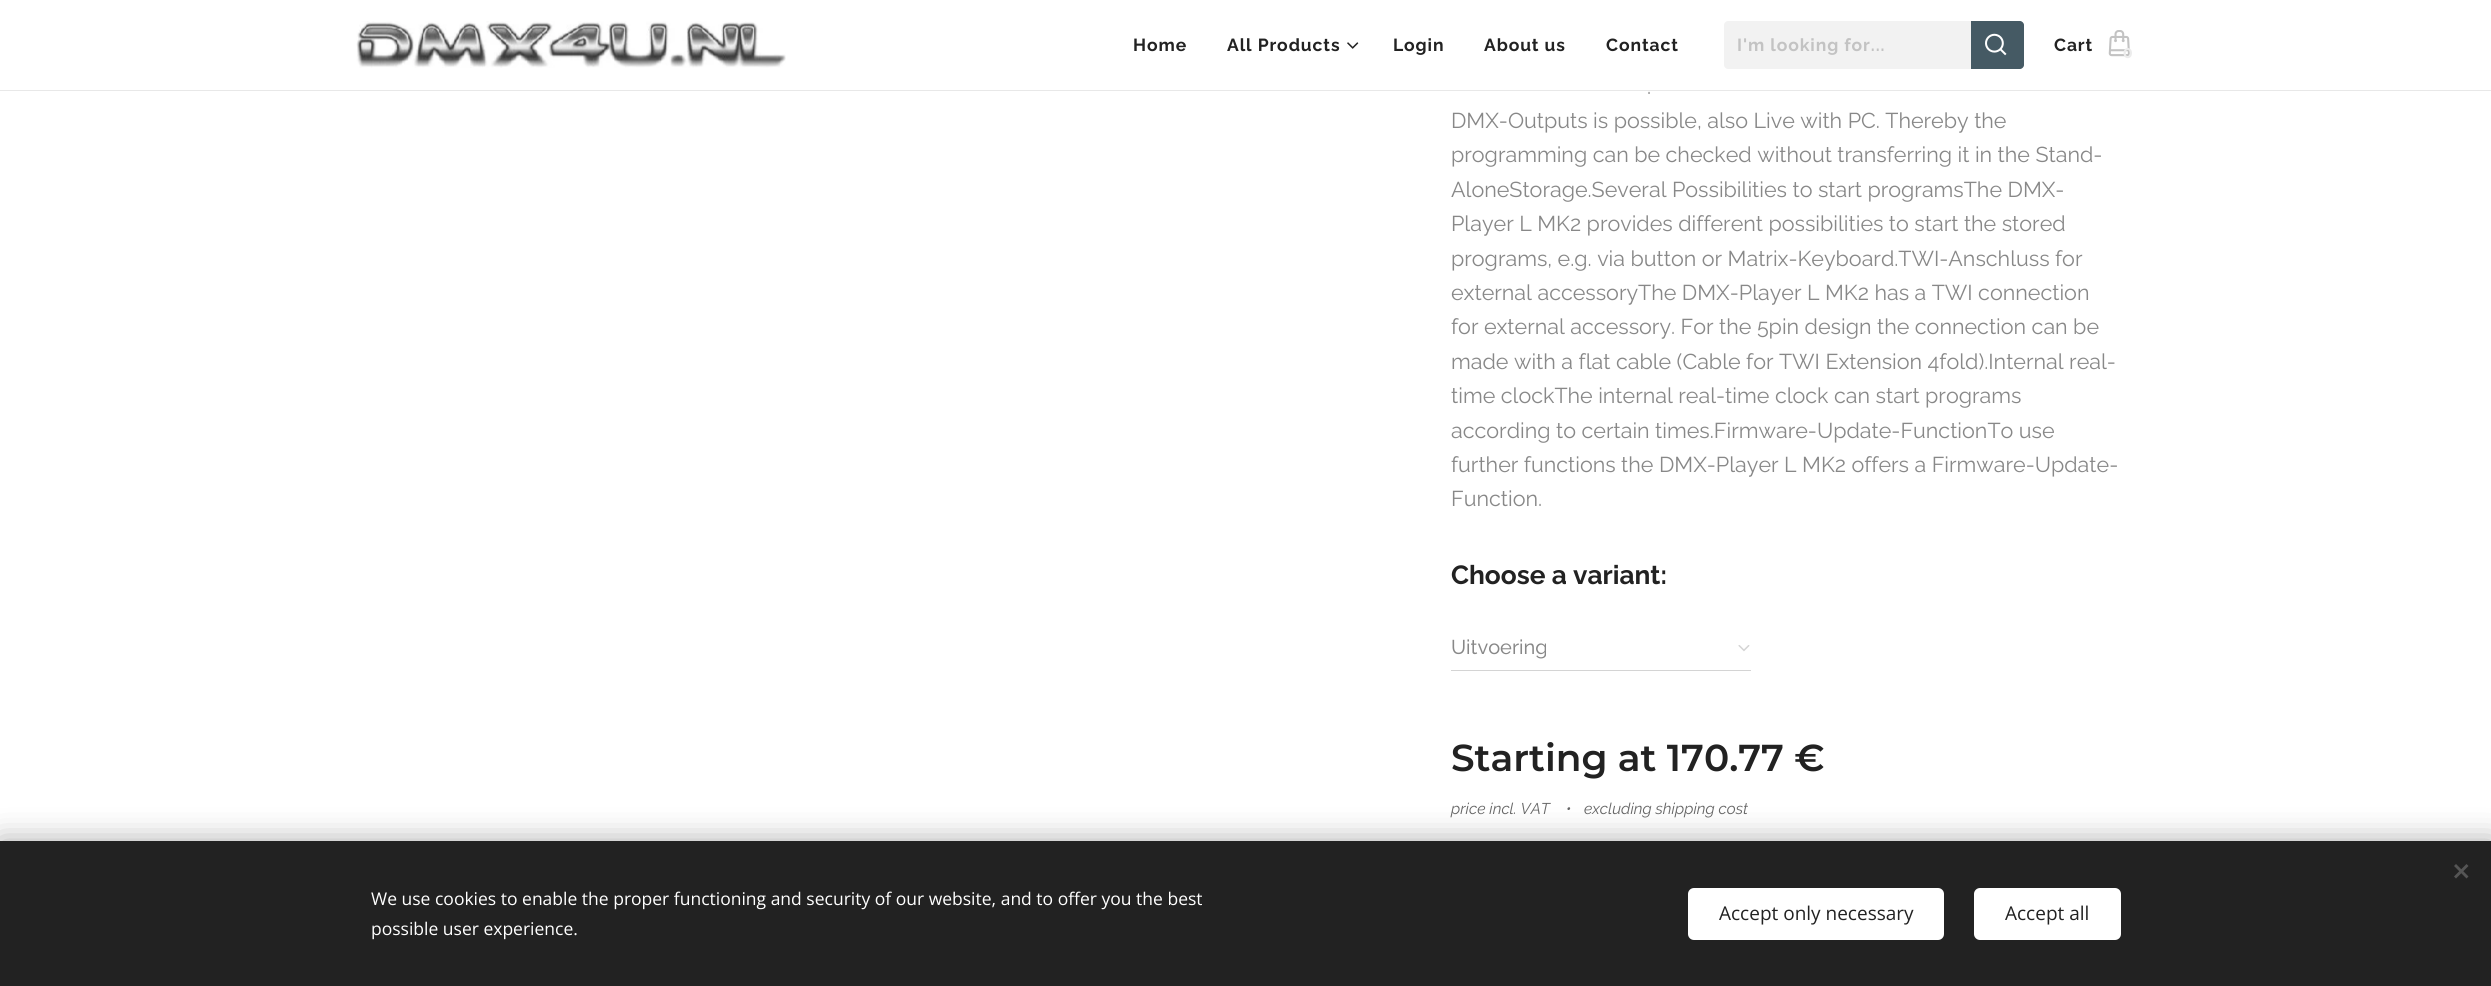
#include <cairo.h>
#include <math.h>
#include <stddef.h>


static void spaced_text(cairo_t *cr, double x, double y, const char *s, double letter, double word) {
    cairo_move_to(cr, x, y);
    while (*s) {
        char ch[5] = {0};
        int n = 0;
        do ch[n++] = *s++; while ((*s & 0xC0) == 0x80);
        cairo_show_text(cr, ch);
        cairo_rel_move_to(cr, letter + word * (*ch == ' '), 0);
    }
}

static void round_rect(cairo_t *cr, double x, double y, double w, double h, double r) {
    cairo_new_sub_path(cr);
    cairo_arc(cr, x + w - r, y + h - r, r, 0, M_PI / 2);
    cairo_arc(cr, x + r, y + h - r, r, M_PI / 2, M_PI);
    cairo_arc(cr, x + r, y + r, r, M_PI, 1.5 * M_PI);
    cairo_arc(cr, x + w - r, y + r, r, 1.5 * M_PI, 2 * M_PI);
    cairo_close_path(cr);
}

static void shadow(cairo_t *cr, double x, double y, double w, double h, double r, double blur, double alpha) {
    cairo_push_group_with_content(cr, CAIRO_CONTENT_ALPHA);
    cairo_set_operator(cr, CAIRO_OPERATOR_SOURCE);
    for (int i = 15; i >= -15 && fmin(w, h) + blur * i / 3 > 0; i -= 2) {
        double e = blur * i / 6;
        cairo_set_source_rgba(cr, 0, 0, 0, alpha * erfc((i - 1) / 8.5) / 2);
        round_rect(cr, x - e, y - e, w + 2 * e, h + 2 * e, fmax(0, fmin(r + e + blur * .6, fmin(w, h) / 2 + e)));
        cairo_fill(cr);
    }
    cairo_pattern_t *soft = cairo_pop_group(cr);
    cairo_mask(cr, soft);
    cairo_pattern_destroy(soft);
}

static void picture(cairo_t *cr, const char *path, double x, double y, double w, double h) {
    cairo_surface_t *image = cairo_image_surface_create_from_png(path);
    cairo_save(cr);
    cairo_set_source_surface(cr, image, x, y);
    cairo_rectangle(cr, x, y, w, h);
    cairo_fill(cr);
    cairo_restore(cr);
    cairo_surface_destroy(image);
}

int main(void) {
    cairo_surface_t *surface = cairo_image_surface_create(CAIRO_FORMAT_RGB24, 2491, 986);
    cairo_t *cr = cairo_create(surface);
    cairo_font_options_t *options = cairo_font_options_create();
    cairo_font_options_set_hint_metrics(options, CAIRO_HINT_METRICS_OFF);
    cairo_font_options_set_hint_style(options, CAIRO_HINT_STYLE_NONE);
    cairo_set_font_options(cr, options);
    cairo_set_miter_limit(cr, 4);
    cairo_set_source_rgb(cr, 1, 1, 1);
    cairo_paint(cr);
    cairo_set_source_rgb(cr, 0.91, 0.91, 0.91);
    cairo_rectangle(cr, 0, 90, 2491, 1);
    cairo_fill(cr);
    picture(cr, "img1.png", 356, 21, 430, 47);
    cairo_select_font_face(cr, "Raleway", CAIRO_FONT_SLANT_NORMAL, CAIRO_FONT_WEIGHT_BOLD);
    cairo_set_font_size(cr, 17.5);
    cairo_set_source_rgb(cr, 0.133, 0.133, 0.133);
    spaced_text(cr, 1133, 51, "Home", 0.9, 0);
    spaced_text(cr, 1227, 51, "All Products", 0.9, 0);
    picture(cr, "img2.png", 1347, 42, 12, 7);
    spaced_text(cr, 1393, 51, "Login", 0.9, 0);
    spaced_text(cr, 1484, 51, "About us", 0.9, 0);
    spaced_text(cr, 1606, 51, "Contact", 0.9, 0);
    cairo_set_source_rgb(cr, 0.949, 0.949, 0.949);
    cairo_new_path(cr);
    cairo_move_to(cr, 1728, 21);
    cairo_line_to(cr, 1971, 21);
    cairo_line_to(cr, 1971, 69);
    cairo_line_to(cr, 1728, 69);
    cairo_curve_to(cr, 1726, 69, 1724, 67, 1724, 65);
    cairo_line_to(cr, 1724, 25);
    cairo_curve_to(cr, 1724, 23, 1726, 21, 1728, 21);
    cairo_close_path(cr);
    cairo_fill(cr);
    cairo_set_source_rgb(cr, 0.765, 0.765, 0.765);
    spaced_text(cr, 1737, 51, "I'm looking for...", 0.9, 0);
    cairo_set_source_rgb(cr, 0.271, 0.353, 0.392);
    cairo_new_path(cr);
    cairo_move_to(cr, 1971, 21);
    cairo_line_to(cr, 2020, 21);
    cairo_curve_to(cr, 2022, 21, 2024, 23, 2024, 25);
    cairo_line_to(cr, 2024, 65);
    cairo_curve_to(cr, 2024, 67, 2022, 69, 2020, 69);
    cairo_line_to(cr, 1971, 69);
    cairo_close_path(cr);
    cairo_fill(cr);
    picture(cr, "img3.png", 1985, 33, 22, 23);
    cairo_set_source_rgb(cr, 0.133, 0.133, 0.133);
    spaced_text(cr, 2054, 51, "Cart", 0.9, 0);
    picture(cr, "img4.png", 2108, 30, 22, 27);
    cairo_select_font_face(cr, "Montserrat", CAIRO_FONT_SLANT_NORMAL, CAIRO_FONT_WEIGHT_BOLD);
    cairo_set_font_size(cr, 14);
    cairo_set_source_rgb(cr, 0.922, 0.922, 0.922);
    cairo_move_to(cr, 2123, 58);
    cairo_show_text(cr, "0");
    cairo_select_font_face(cr, "Raleway", CAIRO_FONT_SLANT_NORMAL, CAIRO_FONT_WEIGHT_NORMAL);
    cairo_set_font_size(cr, 21.5);
    cairo_set_source_rgb(cr, 0.533, 0.533, 0.533);
    cairo_move_to(cr, 1647, 94);
    cairo_show_text(cr, ".");
    cairo_move_to(cr, 1451, 128);
    cairo_show_text(cr, "DMX-Outputs is possible, also Live with PC. Thereby the");
    cairo_move_to(cr, 1451, 162);
    cairo_show_text(cr, "programming can be checked without transferring it in the Stand-");
    cairo_move_to(cr, 1451, 197);
    cairo_show_text(cr, "AloneStorage.Several Possibilities to start programsThe DMX-");
    cairo_move_to(cr, 1451, 231);
    cairo_show_text(cr, "Player L MK2 provides different possibilities to start the stored");
    cairo_move_to(cr, 1451, 266);
    cairo_show_text(cr, "programs, e.g. via button or Matrix-Keyboard.TWI-Anschluss for");
    cairo_move_to(cr, 1451, 300);
    cairo_show_text(cr, "external accessoryThe DMX-Player L MK2 has a TWI connection");
    cairo_move_to(cr, 1451, 334);
    cairo_show_text(cr, "for external accessory. For the 5pin design the connection can be");
    cairo_move_to(cr, 1451, 369);
    cairo_show_text(cr, "made with a flat cable (Cable for TWI Extension 4fold).Internal real-");
    cairo_move_to(cr, 1451, 403);
    cairo_show_text(cr, "time clockThe internal real-time clock can start programs");
    cairo_move_to(cr, 1451, 438);
    cairo_show_text(cr, "according to certain times.Firmware-Update-FunctionTo use");
    cairo_move_to(cr, 1451, 472);
    cairo_show_text(cr, "further functions the DMX-Player L MK2 offers a Firmware-Update-");
    cairo_move_to(cr, 1451, 506);
    cairo_show_text(cr, "Function.");
    cairo_select_font_face(cr, "Raleway", CAIRO_FONT_SLANT_NORMAL, CAIRO_FONT_WEIGHT_BOLD);
    cairo_set_font_size(cr, 26.25);
    cairo_set_source_rgb(cr, 0.133, 0.133, 0.133);
    cairo_move_to(cr, 1451, 584);
    cairo_show_text(cr, "Choose a variant:");
    cairo_select_font_face(cr, "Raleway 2", CAIRO_FONT_SLANT_NORMAL, CAIRO_FONT_WEIGHT_NORMAL);
    cairo_set_font_size(cr, 20);
    cairo_set_source_rgb(cr, 0.533, 0.533, 0.533);
    cairo_move_to(cr, 1451, 654);
    cairo_show_text(cr, "Uitvoering");
    picture(cr, "img5.png", 1738, 645, 12, 7);
    cairo_set_source_rgb(cr, 0.831, 0.831, 0.831);
    cairo_rectangle(cr, 1451, 670, 300, 1);
    cairo_fill(cr);
    cairo_select_font_face(cr, "Montserrat SemiBold", CAIRO_FONT_SLANT_NORMAL, CAIRO_FONT_WEIGHT_NORMAL);
    cairo_set_font_size(cr, 37.5);
    cairo_set_source_rgb(cr, 0.133, 0.133, 0.133);
    cairo_move_to(cr, 1451, 771);
    cairo_show_text(cr, "Starting at 170.77 €");
    cairo_select_font_face(cr, "Raleway", CAIRO_FONT_SLANT_ITALIC, CAIRO_FONT_WEIGHT_NORMAL);
    cairo_set_font_size(cr, 15.6);
    cairo_set_source_rgb(cr, 0.4, 0.4, 0.4);
    cairo_move_to(cr, 1451, 814);
    cairo_show_text(cr, "price incl. VAT");
    cairo_move_to(cr, 1566, 814);
    cairo_show_text(cr, "•");
    cairo_move_to(cr, 1584, 814);
    cairo_show_text(cr, "excluding shipping cost");
    cairo_set_source_rgb(cr, 0, 0, 0);
    shadow(cr, 0, 841, 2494, 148, 0, 15.5, 0.33);
    cairo_set_source_rgb(cr, 0.133, 0.133, 0.133);
    cairo_rectangle(cr, 0, 841, 2491, 145);
    cairo_fill(cr);
    cairo_set_source_rgb(cr, 0.333, 0.333, 0.333);
    cairo_new_path(cr);
    cairo_move_to(cr, 2454, 876.5);
    cairo_line_to(cr, 2466.5, 864);
    cairo_line_to(cr, 2468.5, 866);
    cairo_line_to(cr, 2456, 878.5);
    cairo_close_path(cr);
    cairo_fill(cr);
    cairo_new_path(cr);
    cairo_move_to(cr, 2456, 864);
    cairo_line_to(cr, 2468.5, 876.5);
    cairo_line_to(cr, 2466.5, 878.5);
    cairo_line_to(cr, 2454, 866);
    cairo_close_path(cr);
    cairo_fill(cr);
    cairo_select_font_face(cr, "Open Sans", CAIRO_FONT_SLANT_NORMAL, CAIRO_FONT_WEIGHT_NORMAL);
    cairo_set_font_size(cr, 17.5);
    cairo_set_source_rgb(cr, 1, 1, 1);
    cairo_move_to(cr, 371, 905);
    cairo_show_text(cr, "We use cookies to enable the proper functioning and security of our website, and to offer you the best");
    cairo_move_to(cr, 371, 935);
    cairo_show_text(cr, "possible user experience.");
    round_rect(cr, 1688, 888, 256, 52, 6);
    cairo_fill(cr);
    cairo_set_font_size(cr, 19);
    cairo_set_source_rgb(cr, 0.133, 0.133, 0.133);
    cairo_move_to(cr, 1719, 920);
    cairo_show_text(cr, "Accept only necessary");
    cairo_set_source_rgb(cr, 1, 1, 1);
    round_rect(cr, 1974, 888, 147, 52, 6);
    cairo_fill(cr);
    cairo_set_source_rgb(cr, 0.133, 0.133, 0.133);
    cairo_move_to(cr, 2005, 920);
    cairo_show_text(cr, "Accept all");
    cairo_surface_write_to_png(surface, "page.png");
    cairo_font_options_destroy(options);
    cairo_destroy(cr);
    cairo_surface_destroy(surface);
    return 0;
}
